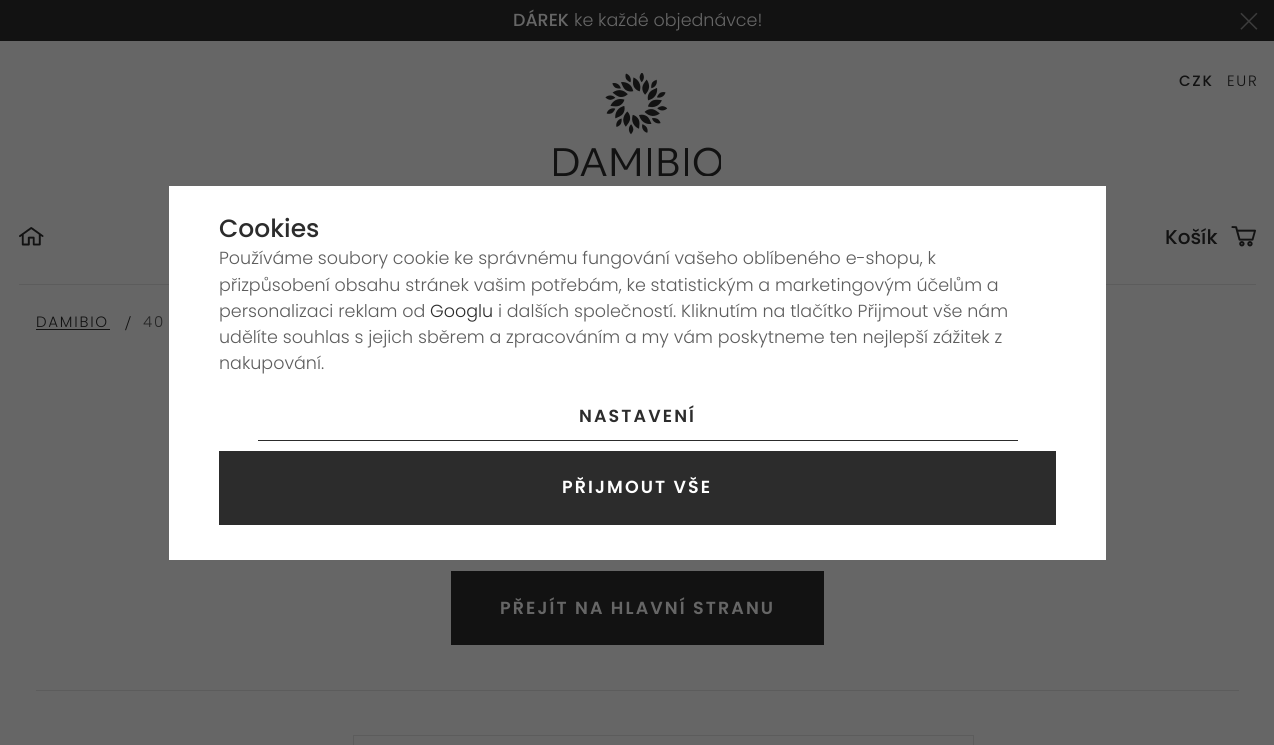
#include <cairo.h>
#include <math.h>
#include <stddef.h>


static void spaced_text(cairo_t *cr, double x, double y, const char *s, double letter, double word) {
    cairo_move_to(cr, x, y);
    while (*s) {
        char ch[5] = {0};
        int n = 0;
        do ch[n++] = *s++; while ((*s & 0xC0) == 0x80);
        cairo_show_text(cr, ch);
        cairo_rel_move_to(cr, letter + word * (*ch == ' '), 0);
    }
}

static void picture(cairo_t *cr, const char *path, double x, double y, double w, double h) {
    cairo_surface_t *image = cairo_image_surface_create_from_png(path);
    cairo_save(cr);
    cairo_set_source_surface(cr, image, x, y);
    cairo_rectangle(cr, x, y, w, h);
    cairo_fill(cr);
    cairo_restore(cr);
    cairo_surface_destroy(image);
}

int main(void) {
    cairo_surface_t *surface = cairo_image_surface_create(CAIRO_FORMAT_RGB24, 1274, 745);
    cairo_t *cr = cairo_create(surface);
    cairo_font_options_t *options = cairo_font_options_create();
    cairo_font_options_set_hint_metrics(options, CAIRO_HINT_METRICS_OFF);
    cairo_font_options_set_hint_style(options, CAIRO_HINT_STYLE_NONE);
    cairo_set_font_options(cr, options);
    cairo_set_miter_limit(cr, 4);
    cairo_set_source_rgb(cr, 0.4, 0.4, 0.4);
    cairo_paint(cr);
    cairo_set_source_rgb(cr, 0.071, 0.071, 0.071);
    cairo_rectangle(cr, 0, 0, 1274, 41);
    cairo_fill(cr);
    cairo_select_font_face(cr, "Poppins Medium", CAIRO_FONT_SLANT_NORMAL, CAIRO_FONT_WEIGHT_NORMAL);
    cairo_set_font_size(cr, 17.5);
    cairo_set_source_rgb(cr, 0.4, 0.4, 0.4);
    cairo_move_to(cr, 513, 26);
    cairo_show_text(cr, "DÁREK");
    cairo_select_font_face(cr, "Poppins Light", CAIRO_FONT_SLANT_NORMAL, CAIRO_FONT_WEIGHT_NORMAL);
    cairo_move_to(cr, 574, 26);
    cairo_show_text(cr, "ke každé objednávce!");
    picture(cr, "img1.png", 1240, 12, 18, 18);
    picture(cr, "img2.png", 554, 73, 167, 103);
    cairo_set_source_rgb(cr, 0.361, 0.361, 0.361);
    cairo_rectangle(cr, 19, 284, 1237, 1);
    cairo_fill(cr);
    cairo_select_font_face(cr, "Poppins Medium", CAIRO_FONT_SLANT_NORMAL, CAIRO_FONT_WEIGHT_NORMAL);
    cairo_set_font_size(cr, 15);
    cairo_set_source_rgb(cr, 0.071, 0.071, 0.071);
    spaced_text(cr, 1179, 86, "CZK", 1.75, 0);
    cairo_select_font_face(cr, "Poppins Light", CAIRO_FONT_SLANT_NORMAL, CAIRO_FONT_WEIGHT_NORMAL);
    spaced_text(cr, 1227, 86, "EUR", 1.75, 0);
    picture(cr, "img3.png", 19, 227, 25, 19);
    cairo_select_font_face(cr, "Poppins Medium", CAIRO_FONT_SLANT_NORMAL, CAIRO_FONT_WEIGHT_NORMAL);
    cairo_set_font_size(cr, 20);
    cairo_move_to(cr, 1165, 244);
    cairo_show_text(cr, "Košík");
    picture(cr, "img4.png", 1231, 226, 25, 21);
    cairo_set_source_rgb(cr, 1, 1, 1);
    cairo_rectangle(cr, 169, 186, 937, 374);
    cairo_fill(cr);
    cairo_set_font_size(cr, 25);
    cairo_set_source_rgb(cr, 0.173, 0.173, 0.173);
    cairo_move_to(cr, 219, 237);
    cairo_show_text(cr, "Cookies");
    cairo_select_font_face(cr, "Poppins Light", CAIRO_FONT_SLANT_NORMAL, CAIRO_FONT_WEIGHT_NORMAL);
    cairo_set_font_size(cr, 17.5);
    cairo_set_source_rgb(cr, 0.365, 0.365, 0.365);
    cairo_move_to(cr, 219, 264);
    cairo_show_text(cr, "Používáme soubory cookie ke správnému fungování vašeho oblíbeného e-shopu, k");
    cairo_move_to(cr, 219, 291);
    cairo_show_text(cr, "přizpůsobení obsahu stránek vašim potřebám, ke statistickým a marketingovým účelům a");
    cairo_move_to(cr, 219, 317);
    cairo_show_text(cr, "personalizaci reklam od");
    cairo_set_source_rgb(cr, 0.173, 0.173, 0.173);
    cairo_move_to(cr, 430, 317);
    cairo_show_text(cr, "Googlu");
    cairo_set_source_rgb(cr, 0.365, 0.365, 0.365);
    cairo_move_to(cr, 498, 317);
    cairo_show_text(cr, "i dalších společností. Kliknutím na tlačítko Přijmout vše nám");
    cairo_move_to(cr, 219, 343);
    cairo_show_text(cr, "udělíte souhlas s jejich sběrem a zpracováním a my vám poskytneme ten nejlepší zážitek z");
    cairo_move_to(cr, 219, 369);
    cairo_show_text(cr, "nakupování.");
    cairo_select_font_face(cr, "Poppins SemiBold", CAIRO_FONT_SLANT_NORMAL, CAIRO_FONT_WEIGHT_NORMAL);
    cairo_set_source_rgb(cr, 0.173, 0.173, 0.173);
    spaced_text(cr, 579, 422, "NASTAVENÍ", 2.1, 0);
    cairo_rectangle(cr, 258, 440, 760, 1);
    cairo_fill(cr);
    cairo_rectangle(cr, 219, 451, 837, 74);
    cairo_fill(cr);
    cairo_set_source_rgb(cr, 1, 1, 1);
    spaced_text(cr, 562, 493, "PŘIJMOUT VŠE", 2.1, 0);
    cairo_select_font_face(cr, "Poppins Light", CAIRO_FONT_SLANT_NORMAL, CAIRO_FONT_WEIGHT_NORMAL);
    cairo_set_font_size(cr, 15);
    cairo_set_source_rgb(cr, 0.071, 0.071, 0.071);
    spaced_text(cr, 36, 327, "DAMIBIO", 1.75, 0);
    cairo_rectangle(cr, 36, 329, 74, 1);
    cairo_fill(cr);
    cairo_select_font_face(cr, "Liberation Serif", CAIRO_FONT_SLANT_NORMAL, CAIRO_FONT_WEIGHT_NORMAL);
    cairo_set_font_size(cr, 21);
    spaced_text(cr, 125, 330, "/", 1.75, 0);
    cairo_select_font_face(cr, "Poppins Light", CAIRO_FONT_SLANT_NORMAL, CAIRO_FONT_WEIGHT_NORMAL);
    cairo_set_font_size(cr, 15);
    cairo_set_source_rgb(cr, 0.145, 0.145, 0.145);
    spaced_text(cr, 143, 327, "40", 1.75, 0);
    cairo_set_source_rgb(cr, 0.071, 0.071, 0.071);
    cairo_rectangle(cr, 451, 571, 373, 74);
    cairo_fill(cr);
    cairo_select_font_face(cr, "Poppins SemiBold", CAIRO_FONT_SLANT_NORMAL, CAIRO_FONT_WEIGHT_NORMAL);
    cairo_set_font_size(cr, 17.5);
    cairo_set_source_rgb(cr, 0.4, 0.4, 0.4);
    spaced_text(cr, 500, 614, "PŘEJÍT NA HLAVNÍ STRANU", 2.1, 0);
    cairo_set_source_rgb(cr, 0.361, 0.361, 0.361);
    cairo_rectangle(cr, 36, 690, 1203, 1);
    cairo_fill(cr);
    cairo_rectangle(cr, 353, 735, 621, 1);
    cairo_fill(cr);
    cairo_rectangle(cr, 353, 735, 1, 10);
    cairo_fill(cr);
    cairo_rectangle(cr, 973, 735, 1, 10);
    cairo_fill(cr);
    cairo_surface_write_to_png(surface, "page.png");
    cairo_font_options_destroy(options);
    cairo_destroy(cr);
    cairo_surface_destroy(surface);
    return 0;
}
